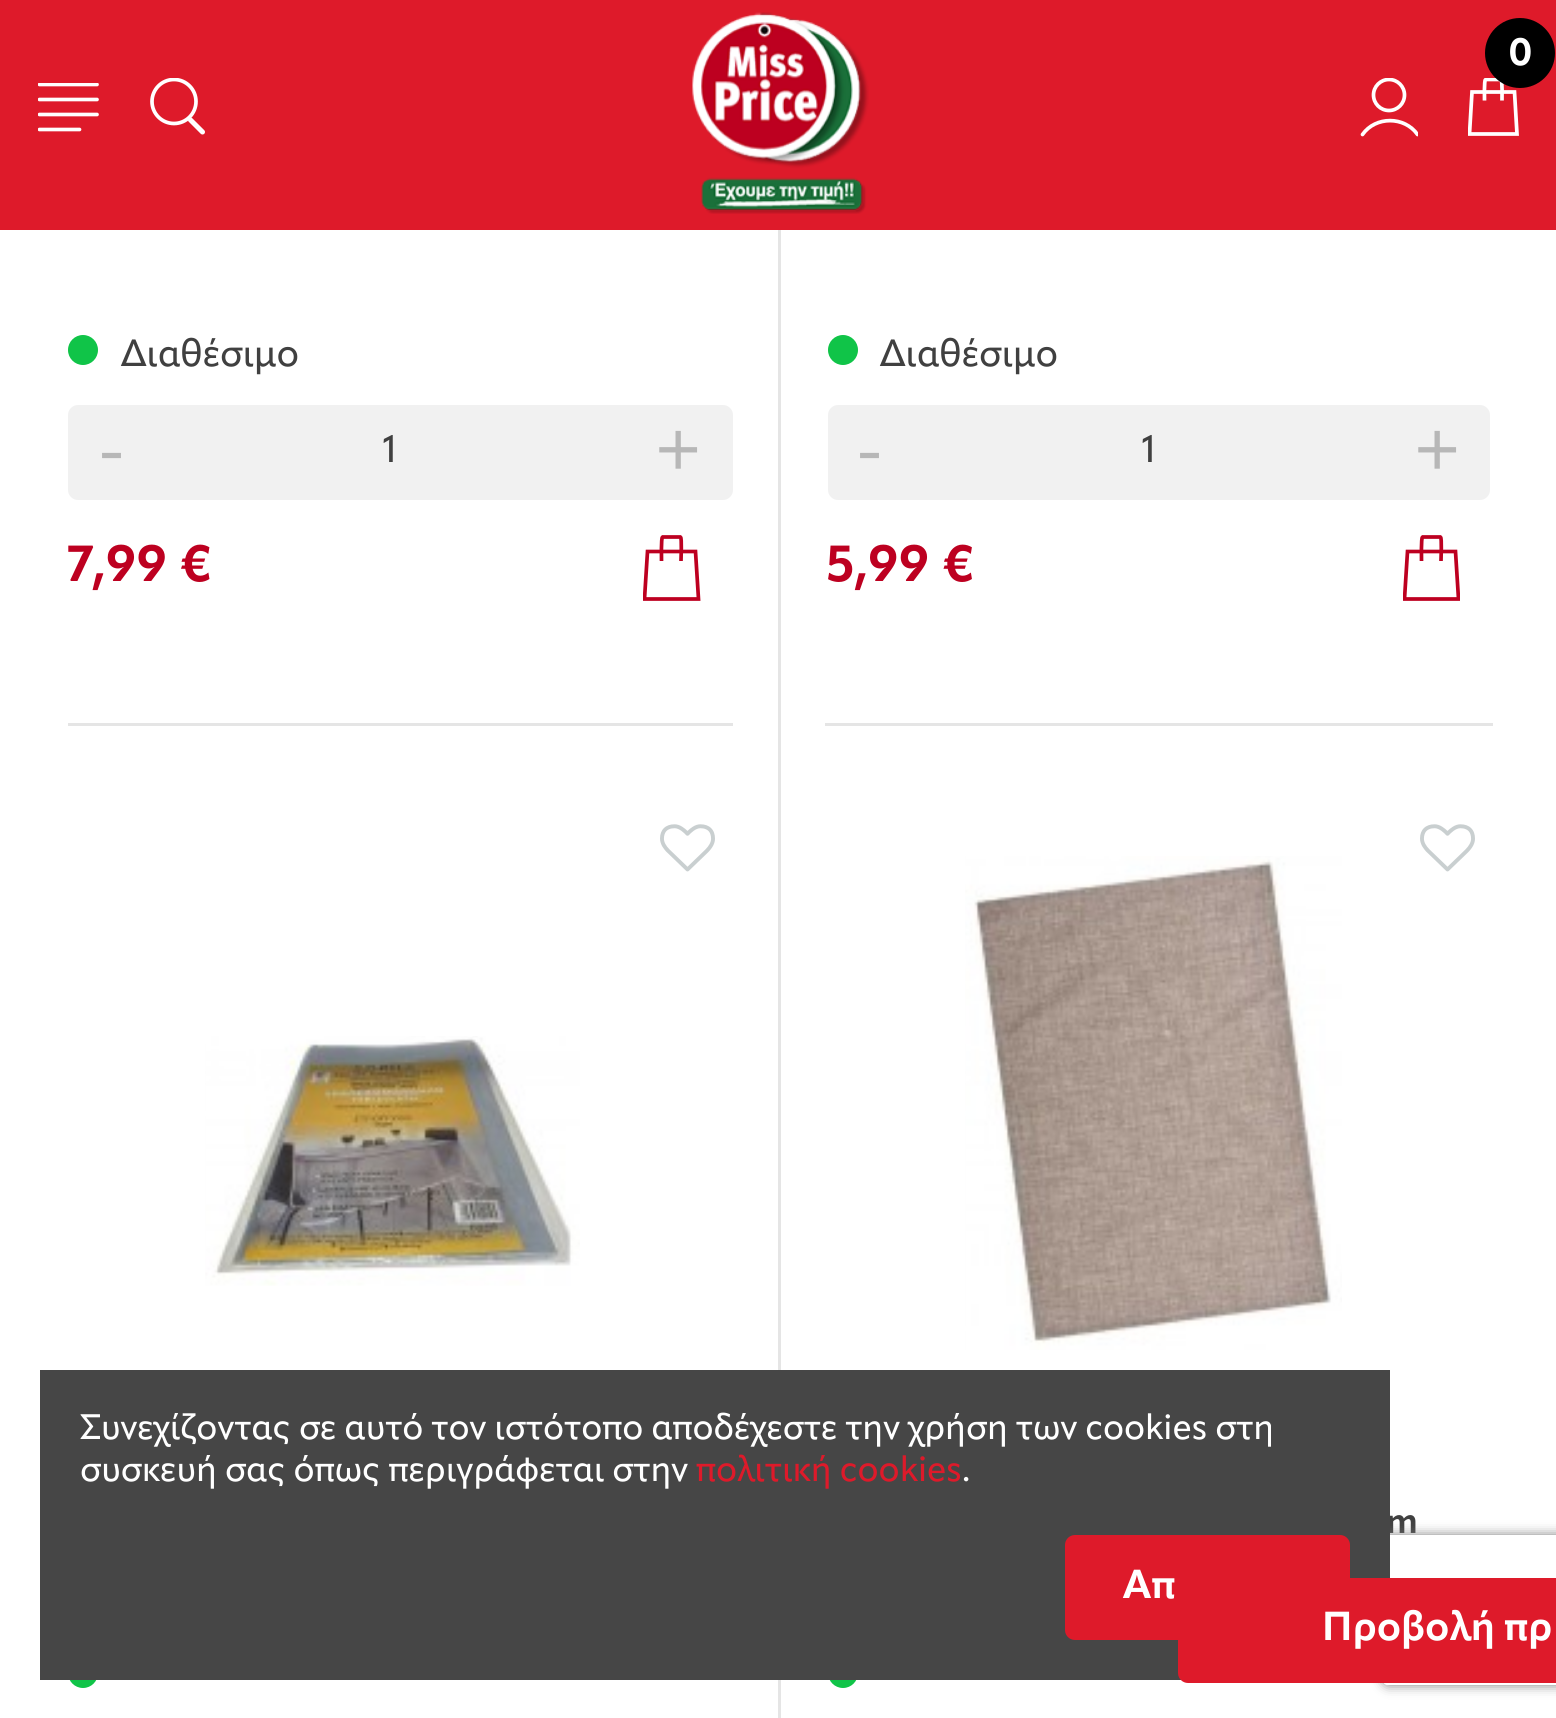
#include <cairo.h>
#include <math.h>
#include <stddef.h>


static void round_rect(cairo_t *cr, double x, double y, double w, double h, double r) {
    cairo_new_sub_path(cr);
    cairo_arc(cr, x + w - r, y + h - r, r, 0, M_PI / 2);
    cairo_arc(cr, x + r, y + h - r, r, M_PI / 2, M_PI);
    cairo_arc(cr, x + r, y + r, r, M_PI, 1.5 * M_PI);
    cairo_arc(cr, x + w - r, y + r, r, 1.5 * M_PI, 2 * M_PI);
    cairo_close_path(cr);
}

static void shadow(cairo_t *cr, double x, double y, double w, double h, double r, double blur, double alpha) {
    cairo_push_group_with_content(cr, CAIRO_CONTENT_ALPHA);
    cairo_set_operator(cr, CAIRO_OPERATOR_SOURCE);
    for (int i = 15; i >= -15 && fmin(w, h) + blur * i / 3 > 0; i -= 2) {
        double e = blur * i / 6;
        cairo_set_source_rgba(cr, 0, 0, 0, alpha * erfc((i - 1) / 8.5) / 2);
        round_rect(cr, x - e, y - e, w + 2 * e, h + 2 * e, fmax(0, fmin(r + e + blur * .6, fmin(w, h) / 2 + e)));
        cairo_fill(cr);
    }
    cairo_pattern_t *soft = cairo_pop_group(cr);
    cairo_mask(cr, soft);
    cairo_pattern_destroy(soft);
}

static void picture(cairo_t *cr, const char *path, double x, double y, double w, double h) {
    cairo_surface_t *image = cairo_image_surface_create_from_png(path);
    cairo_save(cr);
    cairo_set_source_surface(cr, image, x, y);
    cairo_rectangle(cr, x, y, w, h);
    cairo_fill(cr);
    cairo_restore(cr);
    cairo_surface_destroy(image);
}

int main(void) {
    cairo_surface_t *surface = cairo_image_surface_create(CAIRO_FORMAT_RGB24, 1556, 1718);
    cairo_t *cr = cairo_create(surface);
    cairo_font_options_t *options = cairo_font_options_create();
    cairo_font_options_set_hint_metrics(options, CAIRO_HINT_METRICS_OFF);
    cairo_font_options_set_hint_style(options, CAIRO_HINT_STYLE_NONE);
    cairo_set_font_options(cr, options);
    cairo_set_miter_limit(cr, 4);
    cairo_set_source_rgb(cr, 1, 1, 1);
    cairo_paint(cr);
    cairo_set_source_rgb(cr, 0.871, 0.102, 0.165);
    cairo_rectangle(cr, 0, 0, 1556, 230);
    cairo_fill(cr);
    picture(cr, "img1.png", 692, 12, 177, 202);
    cairo_save(cr);
    cairo_rectangle(cr, 1468, 78, 52, 60);
    cairo_clip(cr);
    cairo_new_path(cr);
    cairo_move_to(cr, 1517, 134);
    cairo_line_to(cr, 1469.5, 134);
    cairo_line_to(cr, 1472, 92);
    cairo_line_to(cr, 1514.5, 92);
    cairo_close_path(cr);
    cairo_move_to(cr, 1484.5, 100.5);
    cairo_curve_to(cr, 1484.5, 98.5, 1484, 80.5, 1485.5, 79.5);
    cairo_line_to(cr, 1501, 79.5);
    cairo_curve_to(cr, 1502.5, 80.5, 1502, 98.5, 1502, 100.5);
    cairo_set_source_rgb(cr, 1, 1, 1);
    cairo_set_line_width(cr, 3.7);
    cairo_stroke(cr);
    cairo_restore(cr);
    cairo_set_source_rgb(cr, 0, 0, 0);
    cairo_arc(cr, 1520, 53, 35, 0, 2 * M_PI);
    cairo_fill(cr);
    cairo_select_font_face(cr, "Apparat", CAIRO_FONT_SLANT_NORMAL, CAIRO_FONT_WEIGHT_BOLD);
    cairo_set_font_size(cr, 37.5);
    cairo_set_source_rgb(cr, 1, 1, 1);
    cairo_move_to(cr, 1508, 65);
    cairo_show_text(cr, "0");
    cairo_save(cr);
    cairo_rectangle(cr, 38, 83, 62, 50);
    cairo_clip(cr);
    cairo_new_path(cr);
    cairo_move_to(cr, 39.5, 84.5);
    cairo_line_to(cr, 97, 84.5);
    cairo_move_to(cr, 39.5, 99.5);
    cairo_line_to(cr, 97, 99.5);
    cairo_move_to(cr, 39.5, 114.5);
    cairo_line_to(cr, 97, 114.5);
    cairo_move_to(cr, 39.5, 129.5);
    cairo_line_to(cr, 79.5, 129.5);
    cairo_set_line_width(cr, 3.7);
    cairo_set_line_cap(cr, CAIRO_LINE_CAP_ROUND);
    cairo_stroke(cr);
    cairo_restore(cr);
    cairo_save(cr);
    cairo_rectangle(cr, 150, 78, 55, 57);
    cairo_clip(cr);
    cairo_arc(cr, 174, 101.5, 22, 0, 2 * M_PI);
    cairo_set_line_width(cr, 3.7);
    cairo_stroke(cr);
    cairo_restore(cr);
    cairo_new_path(cr);
    cairo_move_to(cr, 190.5, 120);
    cairo_line_to(cr, 202.5, 132);
    cairo_set_line_width(cr, 5);
    cairo_set_line_cap(cr, CAIRO_LINE_CAP_ROUND);
    cairo_stroke(cr);
    cairo_save(cr);
    cairo_rectangle(cr, 1360, 78, 58, 60);
    cairo_clip(cr);
    cairo_arc(cr, 1389, 95, 15.5, 0, 2 * M_PI);
    cairo_set_line_width(cr, 3.7);
    cairo_set_line_cap(cr, CAIRO_LINE_CAP_BUTT);
    cairo_stroke(cr);
    cairo_new_path(cr);
    cairo_move_to(cr, 1417.5, 134.5);
    cairo_curve_to(cr, 1404.5, 116, 1375.5, 116, 1362.5, 134.5);
    cairo_set_line_cap(cr, CAIRO_LINE_CAP_ROUND);
    cairo_set_line_join(cr, CAIRO_LINE_JOIN_ROUND);
    cairo_stroke(cr);
    cairo_restore(cr);
    cairo_set_source_rgb(cr, 0.063, 0.769, 0.282);
    cairo_arc(cr, 83, 350, 15, 0, 2 * M_PI);
    cairo_fill(cr);
    cairo_select_font_face(cr, "Apparat Medium", CAIRO_FONT_SLANT_NORMAL, CAIRO_FONT_WEIGHT_NORMAL);
    cairo_set_source_rgb(cr, 0.251, 0.251, 0.251);
    cairo_move_to(cr, 121, 366);
    cairo_show_text(cr, "Διαθέσιμο");
    cairo_set_source_rgb(cr, 0.945, 0.945, 0.945);
    cairo_new_path(cr);
    cairo_move_to(cr, 78, 405);
    cairo_line_to(cr, 155, 405);
    cairo_line_to(cr, 155, 500);
    cairo_line_to(cr, 78, 500);
    cairo_curve_to(cr, 72.5, 500, 68, 495.5, 68, 490);
    cairo_line_to(cr, 68, 415);
    cairo_curve_to(cr, 68, 409.5, 72.5, 405, 78, 405);
    cairo_close_path(cr);
    cairo_fill(cr);
    cairo_set_font_size(cr, 70);
    cairo_set_source_rgb(cr, 0.718, 0.718, 0.718);
    cairo_move_to(cr, 98, 471);
    cairo_show_text(cr, "-");
    cairo_set_source_rgb(cr, 0.945, 0.945, 0.945);
    cairo_rectangle(cr, 155, 405, 470, 95);
    cairo_fill(cr);
    cairo_set_font_size(cr, 37.5);
    cairo_set_source_rgb(cr, 0.251, 0.251, 0.251);
    cairo_move_to(cr, 383, 462);
    cairo_show_text(cr, "1");
    cairo_set_source_rgb(cr, 0.945, 0.945, 0.945);
    cairo_new_path(cr);
    cairo_move_to(cr, 625, 405);
    cairo_line_to(cr, 723, 405);
    cairo_curve_to(cr, 728.5, 405, 733, 409.5, 733, 415);
    cairo_line_to(cr, 733, 490);
    cairo_curve_to(cr, 733, 495.5, 728.5, 500, 723, 500);
    cairo_line_to(cr, 625, 500);
    cairo_close_path(cr);
    cairo_fill(cr);
    cairo_set_font_size(cr, 70);
    cairo_set_source_rgb(cr, 0.718, 0.718, 0.718);
    cairo_move_to(cr, 655, 471);
    cairo_show_text(cr, "+");
    cairo_select_font_face(cr, "Apparat", CAIRO_FONT_SLANT_NORMAL, CAIRO_FONT_WEIGHT_BOLD);
    cairo_set_font_size(cr, 50);
    cairo_set_source_rgb(cr, 0.741, 0, 0.125);
    cairo_move_to(cr, 68, 581);
    cairo_show_text(cr, "7,99 €");
    cairo_save(cr);
    cairo_rectangle(cr, 643, 535, 60, 68);
    cairo_clip(cr);
    cairo_new_path(cr);
    cairo_move_to(cr, 698.5, 599);
    cairo_line_to(cr, 644.5, 599);
    cairo_line_to(cr, 647.5, 551.5);
    cairo_line_to(cr, 695.5, 551.5);
    cairo_close_path(cr);
    cairo_set_line_width(cr, 3.7);
    cairo_set_line_cap(cr, CAIRO_LINE_CAP_BUTT);
    cairo_stroke(cr);
    cairo_restore(cr);
    cairo_new_path(cr);
    cairo_move_to(cr, 661.5, 561);
    cairo_curve_to(cr, 661.5, 558.5, 661, 538, 662.5, 537);
    cairo_line_to(cr, 680.5, 537);
    cairo_curve_to(cr, 682, 538, 681, 558.5, 681, 561);
    cairo_set_line_width(cr, 3.7);
    cairo_set_line_cap(cr, CAIRO_LINE_CAP_BUTT);
    cairo_stroke(cr);
    cairo_set_source_rgb(cr, 0.898, 0.898, 0.898);
    cairo_rectangle(cr, 68, 723, 665, 3);
    cairo_fill(cr);
    cairo_rectangle(cr, 778, 230, 3, 1488);
    cairo_fill(cr);
    cairo_set_source_rgb(cr, 0.063, 0.769, 0.282);
    cairo_arc(cr, 843, 350, 15, 0, 2 * M_PI);
    cairo_fill(cr);
    cairo_select_font_face(cr, "Apparat Medium", CAIRO_FONT_SLANT_NORMAL, CAIRO_FONT_WEIGHT_NORMAL);
    cairo_set_font_size(cr, 37.5);
    cairo_set_source_rgb(cr, 0.251, 0.251, 0.251);
    cairo_move_to(cr, 880, 366);
    cairo_show_text(cr, "Διαθέσιμο");
    cairo_set_source_rgb(cr, 0.945, 0.945, 0.945);
    cairo_new_path(cr);
    cairo_move_to(cr, 838, 405);
    cairo_line_to(cr, 913, 405);
    cairo_line_to(cr, 913, 500);
    cairo_line_to(cr, 838, 500);
    cairo_curve_to(cr, 832.5, 500, 828, 495.5, 828, 490);
    cairo_line_to(cr, 828, 415);
    cairo_curve_to(cr, 828, 409.5, 832.5, 405, 838, 405);
    cairo_close_path(cr);
    cairo_fill(cr);
    cairo_set_font_size(cr, 70);
    cairo_set_source_rgb(cr, 0.718, 0.718, 0.718);
    cairo_move_to(cr, 856, 471);
    cairo_show_text(cr, "-");
    cairo_set_source_rgb(cr, 0.945, 0.945, 0.945);
    cairo_rectangle(cr, 913, 405, 470, 95);
    cairo_fill(cr);
    cairo_set_font_size(cr, 37.5);
    cairo_set_source_rgb(cr, 0.251, 0.251, 0.251);
    cairo_move_to(cr, 1142, 462);
    cairo_show_text(cr, "1");
    cairo_set_source_rgb(cr, 0.945, 0.945, 0.945);
    cairo_new_path(cr);
    cairo_move_to(cr, 1383, 405);
    cairo_line_to(cr, 1480, 405);
    cairo_curve_to(cr, 1485.5, 405, 1490, 409.5, 1490, 415);
    cairo_line_to(cr, 1490, 490);
    cairo_curve_to(cr, 1490, 495.5, 1485.5, 500, 1480, 500);
    cairo_line_to(cr, 1383, 500);
    cairo_close_path(cr);
    cairo_fill(cr);
    cairo_set_font_size(cr, 70);
    cairo_set_source_rgb(cr, 0.718, 0.718, 0.718);
    cairo_move_to(cr, 1414, 471);
    cairo_show_text(cr, "+");
    cairo_select_font_face(cr, "Apparat", CAIRO_FONT_SLANT_NORMAL, CAIRO_FONT_WEIGHT_BOLD);
    cairo_set_font_size(cr, 50);
    cairo_set_source_rgb(cr, 0.741, 0, 0.125);
    cairo_move_to(cr, 826, 581);
    cairo_show_text(cr, "5,99 €");
    cairo_save(cr);
    cairo_rectangle(cr, 1403, 535, 57, 68);
    cairo_clip(cr);
    cairo_new_path(cr);
    cairo_move_to(cr, 1458.5, 599);
    cairo_line_to(cr, 1404.5, 599);
    cairo_line_to(cr, 1407.5, 551.5);
    cairo_line_to(cr, 1455.5, 551.5);
    cairo_close_path(cr);
    cairo_stroke(cr);
    cairo_restore(cr);
    cairo_new_path(cr);
    cairo_move_to(cr, 1421.5, 561);
    cairo_curve_to(cr, 1421.5, 558.5, 1421, 538, 1422.5, 537);
    cairo_line_to(cr, 1440.5, 537);
    cairo_curve_to(cr, 1442, 538, 1441, 558.5, 1441, 561);
    cairo_stroke(cr);
    cairo_set_source_rgb(cr, 0.898, 0.898, 0.898);
    cairo_rectangle(cr, 825, 723, 668, 3);
    cairo_fill(cr);
    picture(cr, "img2.png", 660, 824, 55, 48);
    picture(cr, "img3.png", 205, 1036, 375, 250);
    cairo_set_source_rgb(cr, 0.063, 0.769, 0.282);
    cairo_arc(cr, 83, 1673, 15, 0, 2 * M_PI);
    cairo_fill(cr);
    picture(cr, "img2.png", 1420, 824, 55, 48);
    picture(cr, "img4.png", 965, 856, 377, 494);
    cairo_set_font_size(cr, 35);
    cairo_set_source_rgb(cr, 0.251, 0.251, 0.251);
    cairo_move_to(cr, 1386, 1533);
    cairo_show_text(cr, "m");
    cairo_set_source_rgb(cr, 0.063, 0.769, 0.282);
    cairo_new_path(cr);
    cairo_arc(cr, 843, 1673, 15, 0, 2 * M_PI);
    cairo_fill(cr);
    cairo_save(cr);
    cairo_set_fill_rule(cr, CAIRO_FILL_RULE_EVEN_ODD);
    cairo_new_path(cr);
    cairo_move_to(cr, 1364, 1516);
    cairo_line_to(cr, 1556, 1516);
    cairo_line_to(cr, 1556, 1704);
    cairo_line_to(cr, 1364, 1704);
    cairo_close_path(cr);
    cairo_move_to(cr, 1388, 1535);
    cairo_line_to(cr, 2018, 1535);
    cairo_curve_to(cr, 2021, 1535, 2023, 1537, 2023, 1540);
    cairo_line_to(cr, 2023, 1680);
    cairo_curve_to(cr, 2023, 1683, 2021, 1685, 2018, 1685);
    cairo_line_to(cr, 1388, 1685);
    cairo_curve_to(cr, 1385, 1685, 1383, 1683, 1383, 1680);
    cairo_line_to(cr, 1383, 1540);
    cairo_curve_to(cr, 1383, 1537, 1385, 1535, 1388, 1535);
    cairo_close_path(cr);
    cairo_clip(cr);
    cairo_set_source_rgb(cr, 0.502, 0.502, 0.502);
    shadow(cr, 1383, 1535, 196, 150, 5, 6, 1);
    cairo_restore(cr);
    cairo_set_source_rgb(cr, 0.275, 0.275, 0.275);
    cairo_rectangle(cr, 40, 1370, 1350, 310);
    cairo_fill(cr);
    cairo_select_font_face(cr, "Apparat Medium", CAIRO_FONT_SLANT_NORMAL, CAIRO_FONT_WEIGHT_NORMAL);
    cairo_set_source_rgb(cr, 1, 1, 1);
    cairo_move_to(cr, 80, 1439);
    cairo_show_text(cr, "Συνεχίζοντας σε αυτό τον ιστότοπο αποδέχεστε την χρήση των cookies στη");
    cairo_move_to(cr, 80, 1481);
    cairo_show_text(cr, "συσκευή σας όπως περιγράφεται στην");
    cairo_set_source_rgb(cr, 0.871, 0.102, 0.165);
    cairo_move_to(cr, 696, 1481);
    cairo_show_text(cr, "πολιτική cookies");
    cairo_set_source_rgb(cr, 1, 1, 1);
    cairo_move_to(cr, 962, 1481);
    cairo_show_text(cr, ".");
    cairo_set_source_rgb(cr, 0.871, 0.102, 0.165);
    round_rect(cr, 1067.5, 1537.5, 280, 100, 7.5);
    cairo_fill_preserve(cr);
    cairo_set_line_width(cr, 5);
    cairo_stroke(cr);
    cairo_select_font_face(cr, "Apparat", CAIRO_FONT_SLANT_NORMAL, CAIRO_FONT_WEIGHT_BOLD);
    cairo_set_font_size(cr, 40);
    cairo_set_source_rgb(cr, 1, 1, 1);
    cairo_move_to(cr, 1123, 1598);
    cairo_show_text(cr, "Απ");
    cairo_set_source_rgb(cr, 0.871, 0.102, 0.165);
    round_rect(cr, 1180.5, 1580.5, 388, 100, 7.5);
    cairo_fill_preserve(cr);
    cairo_stroke(cr);
    cairo_set_source_rgb(cr, 1, 1, 1);
    cairo_move_to(cr, 1322, 1640);
    cairo_show_text(cr, "Προβολή πρ");
    cairo_surface_write_to_png(surface, "page.png");
    cairo_font_options_destroy(options);
    cairo_destroy(cr);
    cairo_surface_destroy(surface);
    return 0;
}
